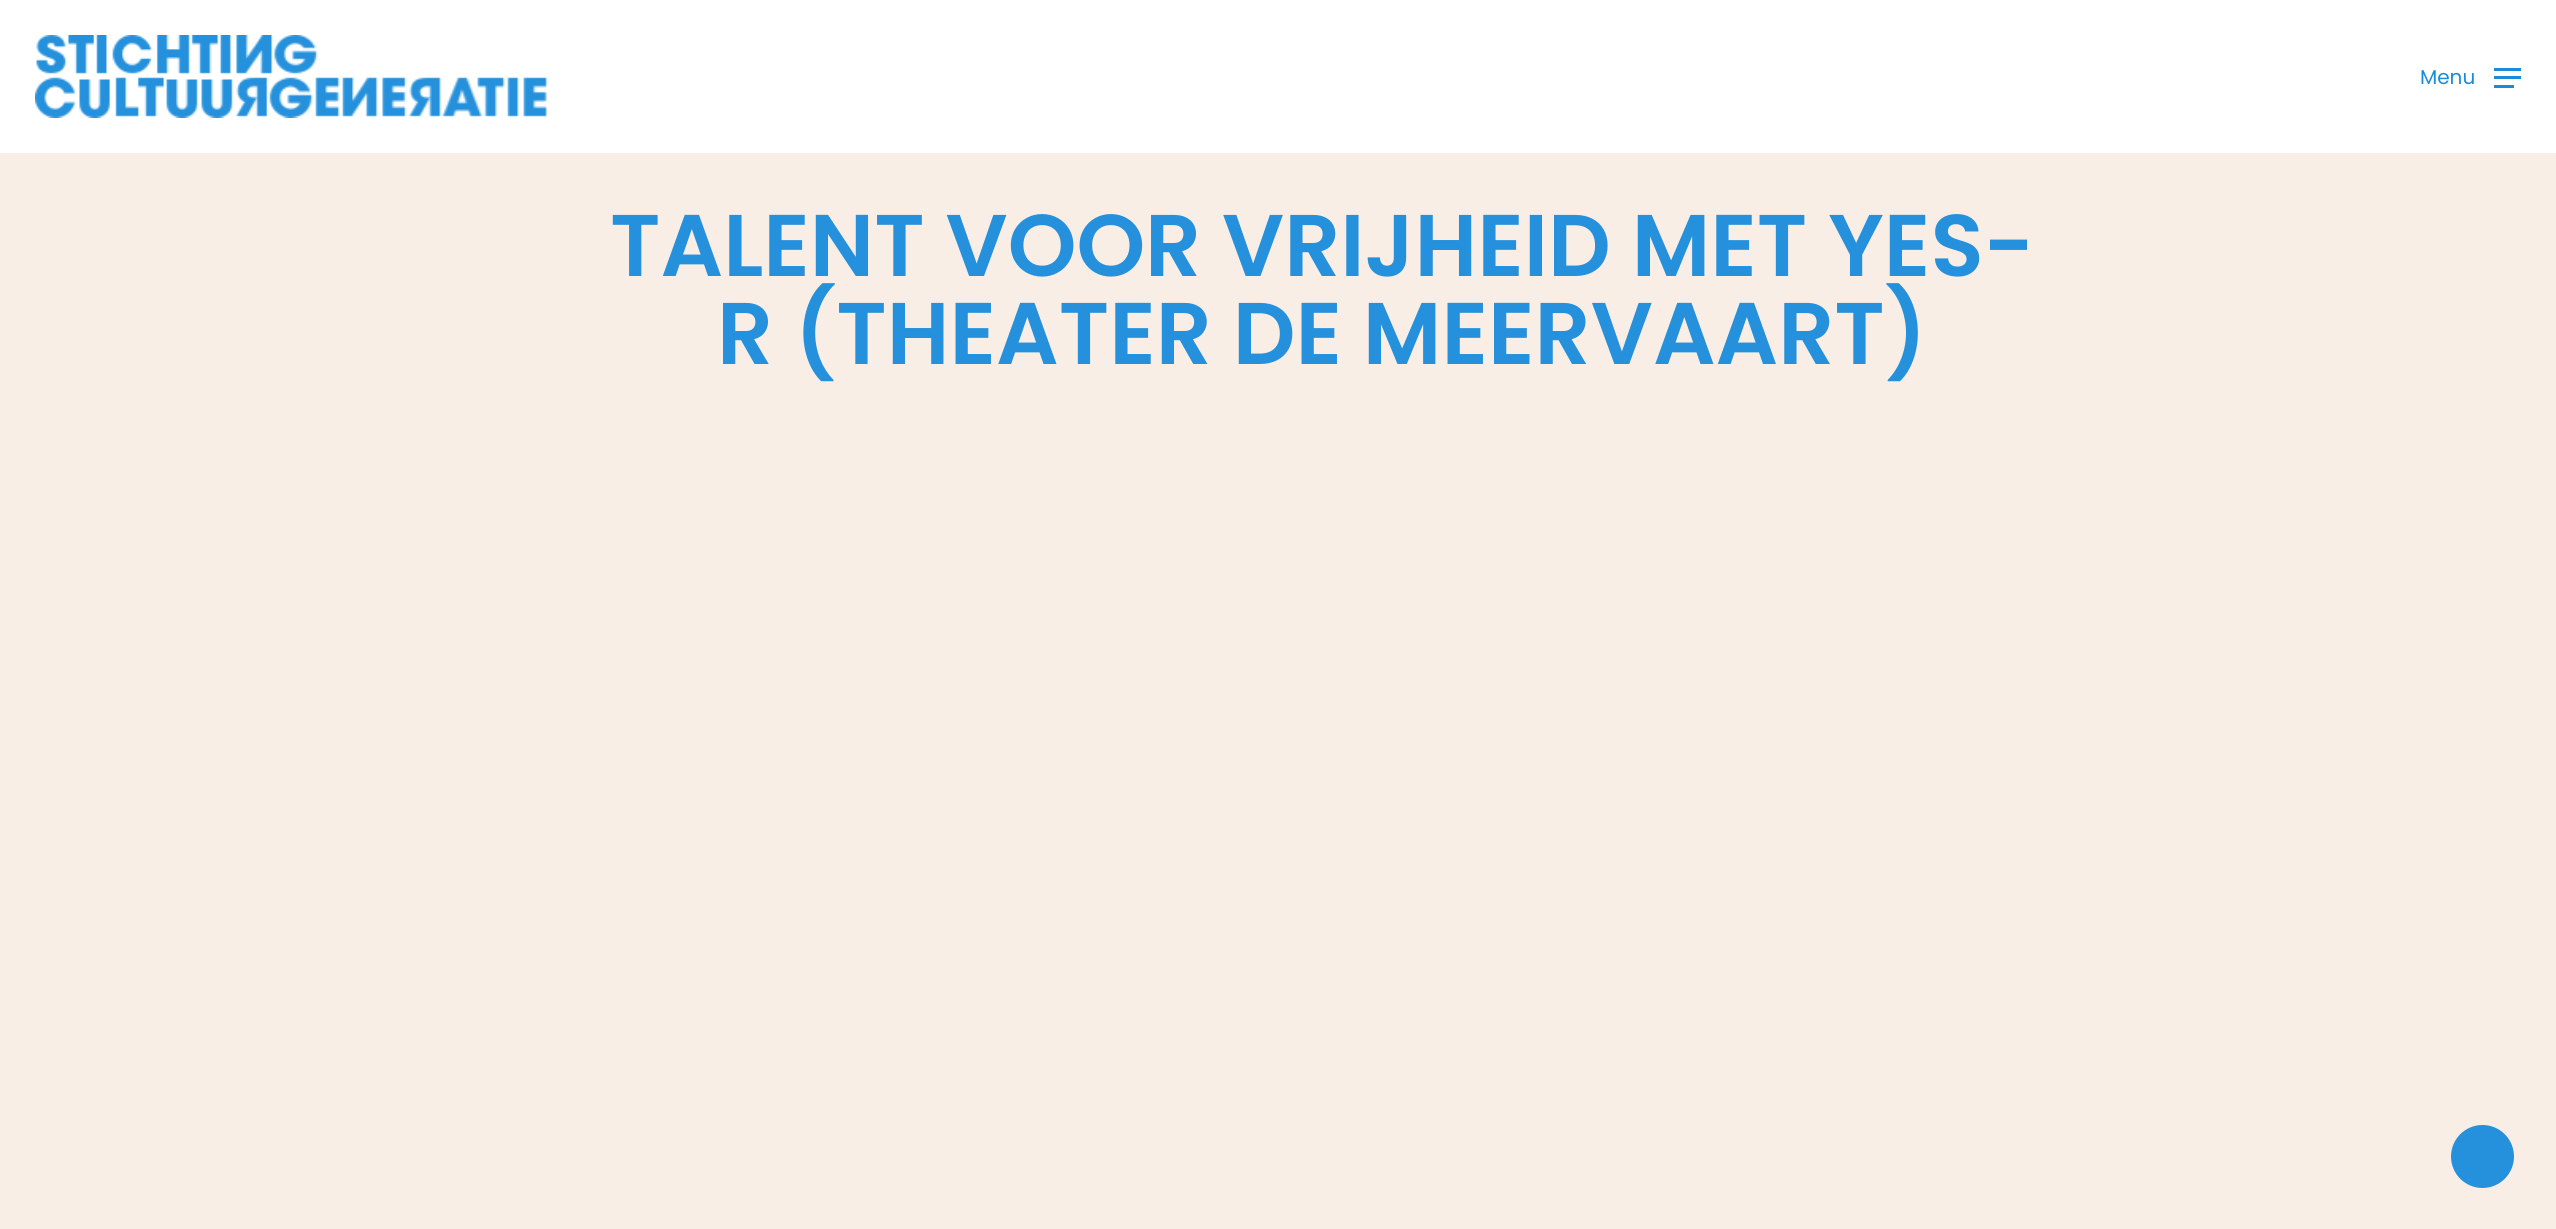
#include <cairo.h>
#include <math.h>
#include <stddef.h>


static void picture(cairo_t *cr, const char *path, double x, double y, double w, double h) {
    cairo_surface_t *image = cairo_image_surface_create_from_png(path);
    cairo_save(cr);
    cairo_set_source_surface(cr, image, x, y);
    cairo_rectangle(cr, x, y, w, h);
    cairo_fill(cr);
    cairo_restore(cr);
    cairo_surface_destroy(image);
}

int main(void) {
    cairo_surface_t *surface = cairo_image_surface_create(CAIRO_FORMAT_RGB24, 2556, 1229);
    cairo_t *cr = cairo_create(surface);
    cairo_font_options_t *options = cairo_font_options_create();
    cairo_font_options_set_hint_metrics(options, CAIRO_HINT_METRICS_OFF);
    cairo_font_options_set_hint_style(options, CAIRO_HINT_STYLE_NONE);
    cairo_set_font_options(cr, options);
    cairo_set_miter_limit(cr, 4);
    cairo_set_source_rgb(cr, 0.976, 0.933, 0.898);
    cairo_paint(cr);
    cairo_set_source_rgb(cr, 1, 1, 1);
    cairo_rectangle(cr, 0, 0, 2556, 153);
    cairo_fill(cr);
    picture(cr, "img1.png", 35, 35, 512, 83);
    cairo_select_font_face(cr, "Poppins", CAIRO_FONT_SLANT_NORMAL, CAIRO_FONT_WEIGHT_NORMAL);
    cairo_set_font_size(cr, 20);
    cairo_set_source_rgb(cr, 0.098, 0.545, 0.859);
    cairo_move_to(cr, 2420, 84);
    cairo_show_text(cr, "Menu");
    cairo_rectangle(cr, 2494, 68, 27, 3);
    cairo_fill(cr);
    cairo_rectangle(cr, 2494, 85, 20, 3);
    cairo_fill(cr);
    cairo_rectangle(cr, 2494, 76, 27, 3);
    cairo_fill(cr);
    cairo_select_font_face(cr, "Poppins SemiBold", CAIRO_FONT_SLANT_NORMAL, CAIRO_FONT_WEIGHT_NORMAL);
    cairo_set_font_size(cr, 87.5);
    cairo_set_source_rgb(cr, 0.145, 0.565, 0.859);
    cairo_move_to(cr, 610, 276);
    cairo_show_text(cr, "TALENT VOOR VRIJHEID MET YES-");
    cairo_move_to(cr, 717, 364);
    cairo_show_text(cr, "R (THEATER DE MEERVAART)");
    cairo_new_path(cr);
    cairo_arc(cr, 2482.5, 1156.5, 31.5, 0, 2 * M_PI);
    cairo_fill(cr);
    cairo_surface_write_to_png(surface, "page.png");
    cairo_font_options_destroy(options);
    cairo_destroy(cr);
    cairo_surface_destroy(surface);
    return 0;
}
